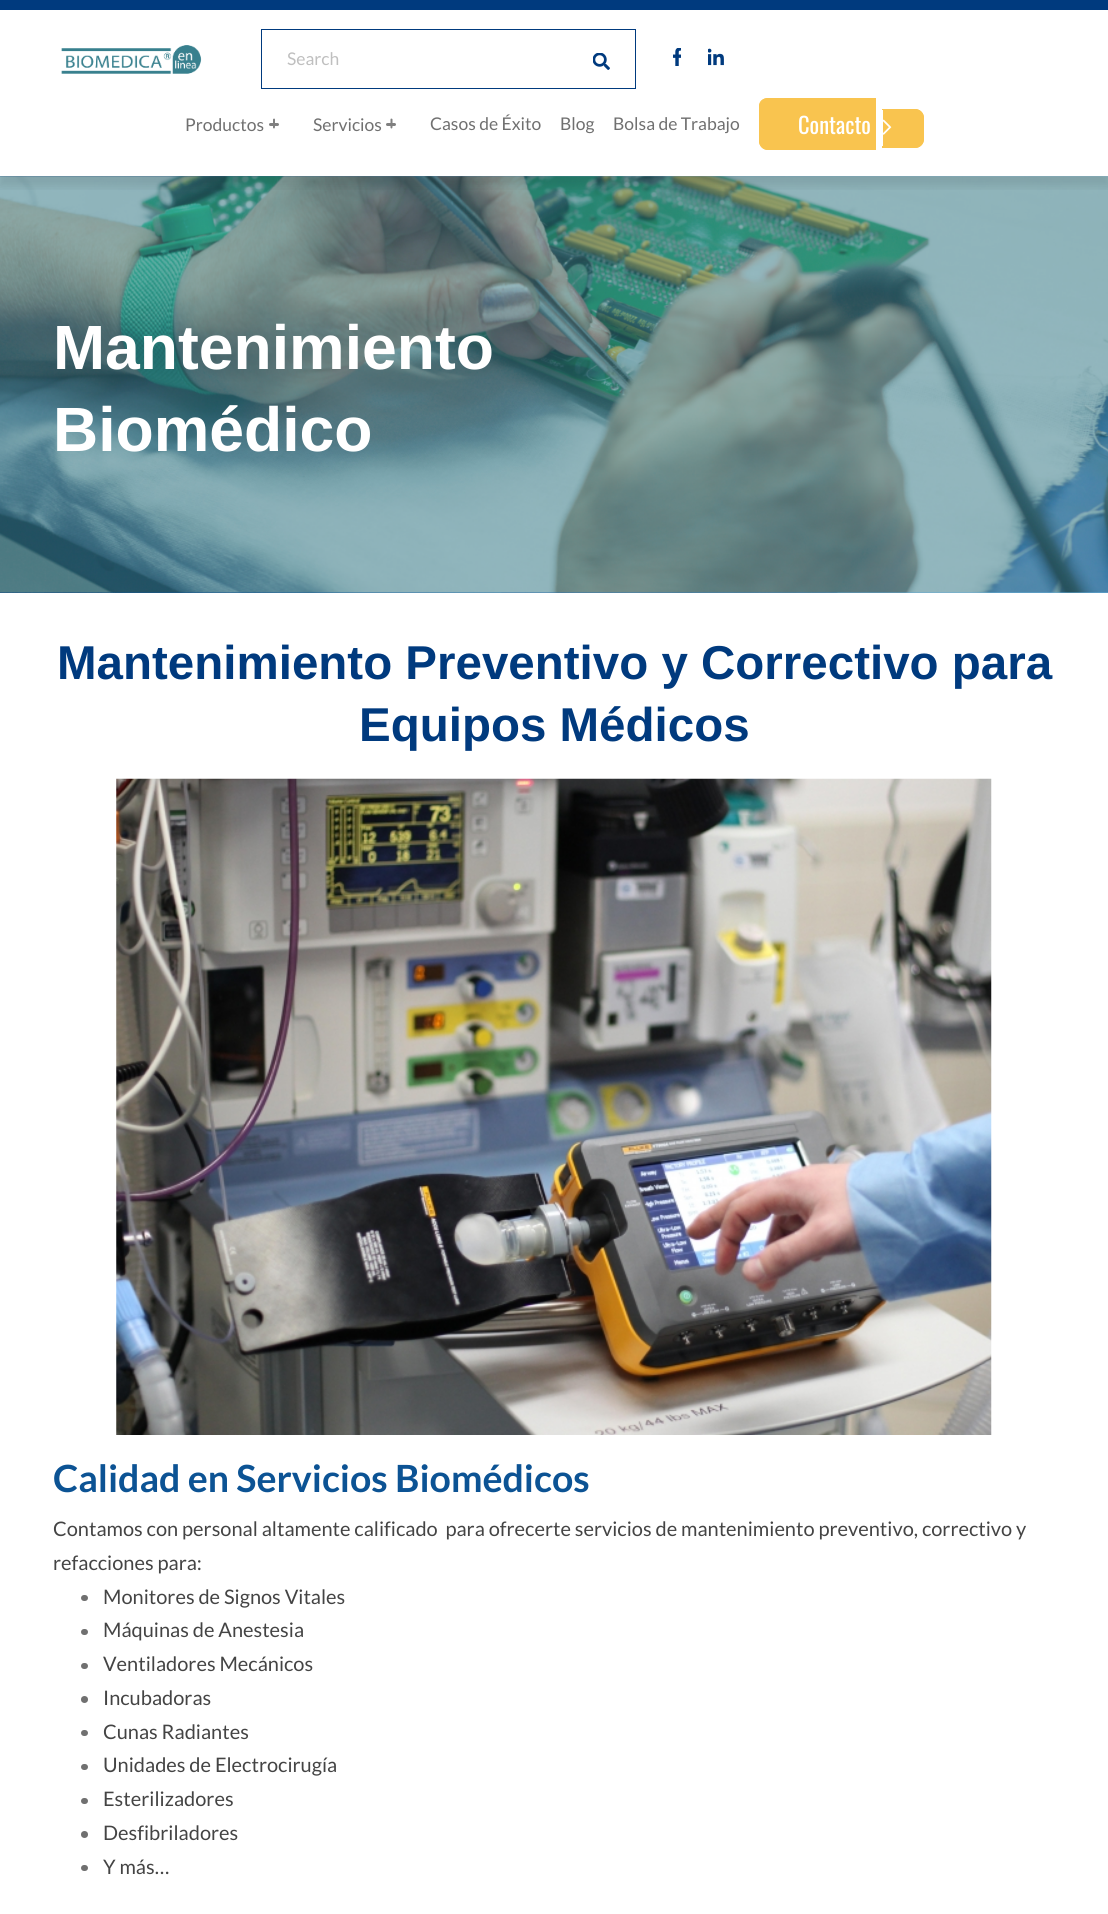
#include <cairo.h>
#include <math.h>
#include <stddef.h>


static void round_rect(cairo_t *cr, double x, double y, double w, double h, double r) {
    cairo_new_sub_path(cr);
    cairo_arc(cr, x + w - r, y + h - r, r, 0, M_PI / 2);
    cairo_arc(cr, x + r, y + h - r, r, M_PI / 2, M_PI);
    cairo_arc(cr, x + r, y + r, r, M_PI, 1.5 * M_PI);
    cairo_arc(cr, x + w - r, y + r, r, 1.5 * M_PI, 2 * M_PI);
    cairo_close_path(cr);
}

static void shadow(cairo_t *cr, double x, double y, double w, double h, double r, double blur, double alpha) {
    cairo_push_group_with_content(cr, CAIRO_CONTENT_ALPHA);
    cairo_set_operator(cr, CAIRO_OPERATOR_SOURCE);
    for (int i = 15; i >= -15 && fmin(w, h) + blur * i / 3 > 0; i -= 2) {
        double e = blur * i / 6;
        cairo_set_source_rgba(cr, 0, 0, 0, alpha * erfc((i - 1) / 8.5) / 2);
        round_rect(cr, x - e, y - e, w + 2 * e, h + 2 * e, fmax(0, fmin(r + e + blur * .6, fmin(w, h) / 2 + e)));
        cairo_fill(cr);
    }
    cairo_pattern_t *soft = cairo_pop_group(cr);
    cairo_mask(cr, soft);
    cairo_pattern_destroy(soft);
}

static void picture(cairo_t *cr, const char *path, double x, double y, double w, double h) {
    cairo_surface_t *image = cairo_image_surface_create_from_png(path);
    cairo_save(cr);
    cairo_set_source_surface(cr, image, x, y);
    cairo_rectangle(cr, x, y, w, h);
    cairo_fill(cr);
    cairo_restore(cr);
    cairo_surface_destroy(image);
}

int main(void) {
    cairo_surface_t *surface = cairo_image_surface_create(CAIRO_FORMAT_RGB24, 1108, 1914);
    cairo_t *cr = cairo_create(surface);
    cairo_font_options_t *options = cairo_font_options_create();
    cairo_font_options_set_hint_metrics(options, CAIRO_HINT_METRICS_OFF);
    cairo_font_options_set_hint_style(options, CAIRO_HINT_STYLE_NONE);
    cairo_set_font_options(cr, options);
    cairo_set_miter_limit(cr, 4);
    cairo_pattern_t *gradient;
    cairo_set_source_rgb(cr, 1, 1, 1);
    cairo_paint(cr);
    cairo_set_source_rgb(cr, 0.239, 0.522, 0.776);
    cairo_rectangle(cr, 0, 176, 1108, 417);
    cairo_fill(cr);
    picture(cr, "img7.png", 0, 176, 1108, 417);
    gradient = cairo_pattern_create_linear(0, 384, 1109, 384);
    cairo_pattern_add_color_stop_rgba(gradient, 0.2, 0, 0.227, 0.494, 0.7);
    cairo_pattern_add_color_stop_rgba(gradient, 0.9, 0.369, 0.706, 0.906, 0.5);
    cairo_set_source(cr, gradient);
    cairo_pattern_destroy(gradient);
    cairo_rectangle(cr, 0, 176, 1108, 417);
    cairo_fill(cr);
    picture(cr, "img6.png", 0, 176, 1108, 417);
    cairo_save(cr);
    cairo_rectangle(cr, 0, 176, 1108, 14);
    cairo_clip(cr);
    cairo_set_source_rgb(cr, 0, 0, 0);
    shadow(cr, 0, 10, 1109, 176, 0, 5, 0.1);
    cairo_restore(cr);
    cairo_set_source_rgb(cr, 0, 0.227, 0.494);
    cairo_rectangle(cr, 0, 0, 1108, 10);
    cairo_fill(cr);
    picture(cr, "img1.png", 61, 45, 141, 29);
    cairo_rectangle(cr, 261.5, 29.5, 374, 59);
    cairo_set_line_width(cr, 1);
    cairo_stroke(cr);
    cairo_select_font_face(cr, "Lato", CAIRO_FONT_SLANT_NORMAL, CAIRO_FONT_WEIGHT_NORMAL);
    cairo_set_font_size(cr, 17.5);
    cairo_set_source_rgb(cr, 0.749, 0.749, 0.749);
    cairo_move_to(cr, 287, 65);
    cairo_show_text(cr, "Search");
    picture(cr, "img2.png", 593, 53, 17, 17);
    picture(cr, "img3.png", 673, 48, 8, 18);
    picture(cr, "img4.png", 708, 48, 16, 18);
    cairo_set_source_rgb(cr, 0.439, 0.439, 0.439);
    cairo_move_to(cr, 185, 131);
    cairo_show_text(cr, "Productos");
    cairo_set_source_rgb(cr, 0.502, 0.502, 0.502);
    cairo_new_path(cr);
    cairo_move_to(cr, 275, 119.5);
    cairo_line_to(cr, 275, 126.5);
    cairo_curve_to(cr, 275, 129.5, 273, 128.5, 273, 127.5);
    cairo_line_to(cr, 273, 119.5);
    cairo_curve_to(cr, 273.5, 118, 275, 118.5, 275, 119.5);
    cairo_close_path(cr);
    cairo_fill(cr);
    round_rect(cr, 269, 123, 10, 3, 1.5);
    cairo_fill(cr);
    cairo_set_source_rgb(cr, 0.439, 0.439, 0.439);
    cairo_move_to(cr, 313, 131);
    cairo_show_text(cr, "Servicios");
    cairo_set_source_rgb(cr, 0.502, 0.502, 0.502);
    cairo_new_path(cr);
    cairo_move_to(cr, 392.5, 119.5);
    cairo_line_to(cr, 392.5, 126.5);
    cairo_curve_to(cr, 392.5, 129.5, 390.5, 128.5, 390.5, 127.5);
    cairo_line_to(cr, 390.5, 119.5);
    cairo_curve_to(cr, 390.5, 118, 392.5, 118.5, 392.5, 119.5);
    cairo_close_path(cr);
    cairo_fill(cr);
    round_rect(cr, 386, 123, 10, 3, 1.5);
    cairo_fill(cr);
    cairo_set_source_rgb(cr, 0.439, 0.439, 0.439);
    cairo_move_to(cr, 430, 130);
    cairo_show_text(cr, "Casos de Éxito");
    cairo_move_to(cr, 560, 130);
    cairo_show_text(cr, "Blog");
    cairo_move_to(cr, 613, 130);
    cairo_show_text(cr, "Bolsa de Trabajo");
    cairo_set_source_rgb(cr, 0.973, 0.769, 0.31);
    cairo_new_path(cr);
    cairo_move_to(cr, 768, 98);
    cairo_line_to(cr, 876, 98);
    cairo_line_to(cr, 876, 150);
    cairo_line_to(cr, 768, 150);
    cairo_curve_to(cr, 763, 150, 759, 146, 759, 141);
    cairo_line_to(cr, 759, 107);
    cairo_curve_to(cr, 759, 102, 763, 98, 768, 98);
    cairo_close_path(cr);
    cairo_fill(cr);
    cairo_set_fill_rule(cr, CAIRO_FILL_RULE_EVEN_ODD);
    cairo_new_path(cr);
    cairo_move_to(cr, 768, 98);
    cairo_line_to(cr, 876, 98);
    cairo_line_to(cr, 876, 150);
    cairo_line_to(cr, 768, 150);
    cairo_curve_to(cr, 763, 150, 759, 146, 759, 141);
    cairo_line_to(cr, 759, 106);
    cairo_curve_to(cr, 759, 101, 763, 98, 768, 98);
    cairo_close_path(cr);
    cairo_move_to(cr, 768, 99);
    cairo_line_to(cr, 876, 99);
    cairo_line_to(cr, 876, 149);
    cairo_line_to(cr, 768, 149);
    cairo_curve_to(cr, 763, 149, 760, 145, 760, 141);
    cairo_line_to(cr, 760, 106);
    cairo_curve_to(cr, 760, 102, 763, 99, 768, 99);
    cairo_close_path(cr);
    cairo_fill(cr);
    cairo_select_font_face(cr, "Oswald", CAIRO_FONT_SLANT_NORMAL, CAIRO_FONT_WEIGHT_NORMAL);
    cairo_set_font_size(cr, 22.5);
    cairo_set_source_rgb(cr, 1, 1, 1);
    cairo_move_to(cr, 798, 134);
    cairo_show_text(cr, "Contacto");
    cairo_set_source_rgb(cr, 0.973, 0.769, 0.31);
    cairo_new_path(cr);
    cairo_move_to(cr, 883, 109);
    cairo_line_to(cr, 915, 109);
    cairo_curve_to(cr, 920, 109, 924, 113, 924, 118);
    cairo_line_to(cr, 924, 139);
    cairo_curve_to(cr, 924, 144, 920, 148, 915, 148);
    cairo_line_to(cr, 883, 148);
    cairo_close_path(cr);
    cairo_fill(cr);
    cairo_new_path(cr);
    cairo_move_to(cr, 882, 109);
    cairo_line_to(cr, 915, 109);
    cairo_curve_to(cr, 920, 109, 924, 113, 924, 118);
    cairo_line_to(cr, 924, 139);
    cairo_curve_to(cr, 924, 144, 920, 148, 915, 148);
    cairo_line_to(cr, 882, 148);
    cairo_close_path(cr);
    cairo_move_to(cr, 882, 110);
    cairo_line_to(cr, 915, 110);
    cairo_curve_to(cr, 919, 110, 922, 113, 922, 118);
    cairo_line_to(cr, 922, 139);
    cairo_curve_to(cr, 922, 143, 919, 146, 915, 146);
    cairo_line_to(cr, 882, 146);
    cairo_close_path(cr);
    cairo_fill(cr);
    picture(cr, "img5.png", 883, 119, 9, 16);
    cairo_select_font_face(cr, "Liberation Sans", CAIRO_FONT_SLANT_NORMAL, CAIRO_FONT_WEIGHT_BOLD);
    cairo_set_font_size(cr, 62.5);
    cairo_set_source_rgb(cr, 1, 1, 1);
    cairo_move_to(cr, 53, 369);
    cairo_show_text(cr, "Mantenimiento");
    cairo_move_to(cr, 53, 451);
    cairo_show_text(cr, "Biomédico");
    cairo_set_font_size(cr, 47.5);
    cairo_set_source_rgb(cr, 0, 0.227, 0.494);
    cairo_move_to(cr, 57, 679);
    cairo_show_text(cr, "Mantenimiento Preventivo y Correctivo para");
    cairo_move_to(cr, 359, 741);
    cairo_show_text(cr, "Equipos Médicos");
    picture(cr, "img8.png", 116, 778, 876, 657);
    cairo_select_font_face(cr, "Lato", CAIRO_FONT_SLANT_NORMAL, CAIRO_FONT_WEIGHT_BOLD);
    cairo_set_font_size(cr, 37.5);
    cairo_set_source_rgb(cr, 0.047, 0.325, 0.58);
    cairo_move_to(cr, 53, 1492);
    cairo_show_text(cr, "Calidad en Servicios Biomédicos");
    cairo_select_font_face(cr, "Lato", CAIRO_FONT_SLANT_NORMAL, CAIRO_FONT_WEIGHT_NORMAL);
    cairo_set_font_size(cr, 20);
    cairo_set_source_rgb(cr, 0.267, 0.267, 0.267);
    cairo_move_to(cr, 53, 1536);
    cairo_show_text(cr, "Contamos con personal altamente calificado  para ofrecerte servicios de mantenimiento preventivo, correctivo y");
    cairo_move_to(cr, 53, 1570);
    cairo_show_text(cr, "refacciones para:");
    cairo_set_source_rgb(cr, 0.439, 0.439, 0.439);
    round_rect(cr, 81, 1595, 7, 6, 3);
    cairo_fill(cr);
    cairo_set_source_rgb(cr, 0.267, 0.267, 0.267);
    cairo_move_to(cr, 103, 1604);
    cairo_show_text(cr, "Monitores de Signos Vitales");
    cairo_set_source_rgb(cr, 0.439, 0.439, 0.439);
    round_rect(cr, 81, 1629, 7, 6, 3);
    cairo_fill(cr);
    cairo_set_source_rgb(cr, 0.267, 0.267, 0.267);
    cairo_move_to(cr, 103, 1637);
    cairo_show_text(cr, "Máquinas de Anestesia");
    cairo_set_source_rgb(cr, 0.439, 0.439, 0.439);
    round_rect(cr, 81, 1663, 7, 6, 3);
    cairo_fill(cr);
    cairo_set_source_rgb(cr, 0.267, 0.267, 0.267);
    cairo_move_to(cr, 103, 1671);
    cairo_show_text(cr, "Ventiladores Mecánicos");
    cairo_set_source_rgb(cr, 0.439, 0.439, 0.439);
    cairo_new_path(cr);
    cairo_arc(cr, 84.5, 1699.5, 3.5, 0, 2 * M_PI);
    cairo_fill(cr);
    cairo_set_source_rgb(cr, 0.267, 0.267, 0.267);
    cairo_move_to(cr, 103, 1705);
    cairo_show_text(cr, "Incubadoras");
    cairo_set_source_rgb(cr, 0.439, 0.439, 0.439);
    round_rect(cr, 81, 1730, 7, 6, 3);
    cairo_fill(cr);
    cairo_set_source_rgb(cr, 0.267, 0.267, 0.267);
    cairo_move_to(cr, 103, 1739);
    cairo_show_text(cr, "Cunas Radiantes");
    cairo_set_source_rgb(cr, 0.439, 0.439, 0.439);
    round_rect(cr, 81, 1764, 7, 6, 3);
    cairo_fill(cr);
    cairo_set_source_rgb(cr, 0.267, 0.267, 0.267);
    cairo_move_to(cr, 103, 1772);
    cairo_show_text(cr, "Unidades de Electrocirugía");
    cairo_set_source_rgb(cr, 0.439, 0.439, 0.439);
    round_rect(cr, 81, 1798, 7, 6, 3);
    cairo_fill(cr);
    cairo_set_source_rgb(cr, 0.267, 0.267, 0.267);
    cairo_move_to(cr, 103, 1806);
    cairo_show_text(cr, "Esterilizadores");
    cairo_set_source_rgb(cr, 0.439, 0.439, 0.439);
    cairo_new_path(cr);
    cairo_arc(cr, 84.5, 1834.5, 3.5, 0, 2 * M_PI);
    cairo_fill(cr);
    cairo_set_source_rgb(cr, 0.267, 0.267, 0.267);
    cairo_move_to(cr, 103, 1840);
    cairo_show_text(cr, "Desfibriladores");
    cairo_set_source_rgb(cr, 0.439, 0.439, 0.439);
    round_rect(cr, 81, 1865, 7, 6, 3);
    cairo_fill(cr);
    cairo_set_source_rgb(cr, 0.267, 0.267, 0.267);
    cairo_move_to(cr, 103, 1874);
    cairo_show_text(cr, "Y más…");
    cairo_surface_write_to_png(surface, "page.png");
    cairo_font_options_destroy(options);
    cairo_destroy(cr);
    cairo_surface_destroy(surface);
    return 0;
}
